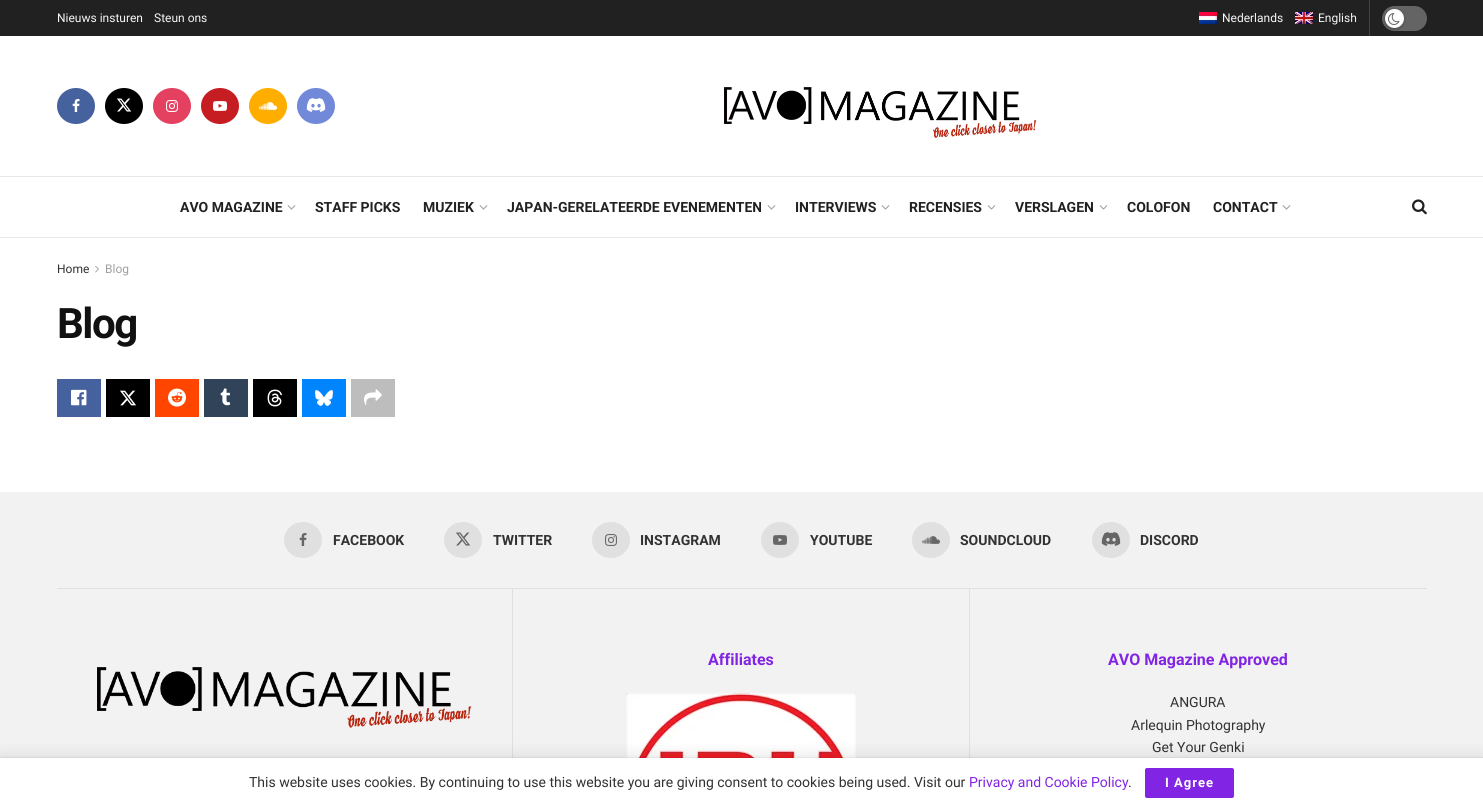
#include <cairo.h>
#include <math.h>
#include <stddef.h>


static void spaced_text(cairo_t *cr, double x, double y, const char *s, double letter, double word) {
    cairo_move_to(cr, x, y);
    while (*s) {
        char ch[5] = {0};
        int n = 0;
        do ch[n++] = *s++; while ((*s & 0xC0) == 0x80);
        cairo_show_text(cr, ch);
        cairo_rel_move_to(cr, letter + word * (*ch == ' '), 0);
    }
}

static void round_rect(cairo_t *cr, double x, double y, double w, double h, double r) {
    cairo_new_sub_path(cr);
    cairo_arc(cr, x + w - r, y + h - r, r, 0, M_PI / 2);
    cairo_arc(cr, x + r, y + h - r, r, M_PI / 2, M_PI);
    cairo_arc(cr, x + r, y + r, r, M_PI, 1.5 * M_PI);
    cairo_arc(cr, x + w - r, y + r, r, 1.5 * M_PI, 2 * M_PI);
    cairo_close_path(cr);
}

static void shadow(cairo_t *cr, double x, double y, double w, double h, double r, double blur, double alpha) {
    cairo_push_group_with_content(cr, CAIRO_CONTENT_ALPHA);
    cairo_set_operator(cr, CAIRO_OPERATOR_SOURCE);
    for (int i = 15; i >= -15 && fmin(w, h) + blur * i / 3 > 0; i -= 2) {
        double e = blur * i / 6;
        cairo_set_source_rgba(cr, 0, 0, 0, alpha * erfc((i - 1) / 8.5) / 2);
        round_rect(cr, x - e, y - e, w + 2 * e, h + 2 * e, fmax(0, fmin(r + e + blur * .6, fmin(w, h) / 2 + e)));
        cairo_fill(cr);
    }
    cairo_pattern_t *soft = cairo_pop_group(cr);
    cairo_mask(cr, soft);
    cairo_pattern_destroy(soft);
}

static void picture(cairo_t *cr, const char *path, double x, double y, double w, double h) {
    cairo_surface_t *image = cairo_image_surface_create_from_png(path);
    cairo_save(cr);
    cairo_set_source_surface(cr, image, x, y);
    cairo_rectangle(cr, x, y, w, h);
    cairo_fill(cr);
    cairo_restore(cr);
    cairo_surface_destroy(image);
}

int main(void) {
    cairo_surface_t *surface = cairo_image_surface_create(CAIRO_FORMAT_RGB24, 1483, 808);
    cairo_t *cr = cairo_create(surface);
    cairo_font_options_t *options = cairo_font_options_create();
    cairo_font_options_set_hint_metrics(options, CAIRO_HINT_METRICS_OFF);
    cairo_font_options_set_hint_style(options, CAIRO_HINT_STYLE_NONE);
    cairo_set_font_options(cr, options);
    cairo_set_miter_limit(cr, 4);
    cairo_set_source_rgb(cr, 0.949, 0.949, 0.949);
    cairo_paint(cr);
    cairo_set_source_rgb(cr, 0.129, 0.129, 0.129);
    cairo_rectangle(cr, 0, 0, 1483, 36);
    cairo_fill(cr);
    cairo_select_font_face(cr, "Roboto", CAIRO_FONT_SLANT_NORMAL, CAIRO_FONT_WEIGHT_NORMAL);
    cairo_set_font_size(cr, 12);
    cairo_set_source_rgb(cr, 0.961, 0.961, 0.961);
    cairo_move_to(cr, 57, 22);
    cairo_show_text(cr, "Nieuws insturen");
    cairo_move_to(cr, 154, 22);
    cairo_show_text(cr, "Steun ons");
    cairo_set_source_rgb(cr, 0.259, 0.259, 0.259);
    cairo_rectangle(cr, 1369, 0, 1, 36);
    cairo_fill(cr);
    picture(cr, "img1.png", 1199, 12, 18, 12);
    cairo_set_source_rgb(cr, 0.961, 0.961, 0.961);
    cairo_move_to(cr, 1222, 22);
    cairo_show_text(cr, "Nederlands");
    picture(cr, "img2.png", 1295, 12, 18, 12);
    cairo_move_to(cr, 1318, 22);
    cairo_show_text(cr, "English");
    cairo_set_source_rgb(cr, 0.392, 0.392, 0.392);
    round_rect(cr, 1382, 6, 45, 25, 12.5);
    cairo_fill(cr);
    cairo_set_source_rgb(cr, 0, 0, 0);
    shadow(cr, 1385, 10, 19, 19, 9.5, 1.5, 0.3);
    cairo_set_source_rgb(cr, 1, 1, 1);
    cairo_arc(cr, 1394.5, 18.5, 9.5, 0, 2 * M_PI);
    cairo_fill(cr);
    picture(cr, "img3.png", 1388, 13, 12, 12);
    cairo_rectangle(cr, 0, 36, 1483, 140);
    cairo_fill(cr);
    cairo_set_source_rgb(cr, 0.271, 0.384, 0.624);
    cairo_new_path(cr);
    cairo_move_to(cr, 76, 88);
    cairo_curve_to(cr, 86.5, 88, 95, 96, 95, 106);
    cairo_curve_to(cr, 95, 116, 86.5, 124, 76, 124);
    cairo_curve_to(cr, 65.5, 124, 57, 116, 57, 106);
    cairo_curve_to(cr, 57, 96, 65.5, 88, 76, 88);
    cairo_close_path(cr);
    cairo_fill(cr);
    picture(cr, "img4.png", 72, 99, 8, 13);
    cairo_set_source_rgb(cr, 0, 0, 0);
    cairo_new_path(cr);
    cairo_move_to(cr, 124, 88);
    cairo_curve_to(cr, 134.5, 88, 143, 96, 143, 106);
    cairo_curve_to(cr, 143, 116, 134.5, 124, 124, 124);
    cairo_curve_to(cr, 113.5, 124, 105, 116, 105, 106);
    cairo_curve_to(cr, 105, 96, 113.5, 88, 124, 88);
    cairo_close_path(cr);
    cairo_fill(cr);
    picture(cr, "img5.png", 117, 98, 15, 14);
    cairo_set_source_rgb(cr, 0.894, 0.251, 0.373);
    cairo_new_path(cr);
    cairo_move_to(cr, 172, 88);
    cairo_curve_to(cr, 182.5, 88, 191, 96, 191, 106);
    cairo_curve_to(cr, 191, 116, 182.5, 124, 172, 124);
    cairo_curve_to(cr, 161.5, 124, 153, 116, 153, 106);
    cairo_curve_to(cr, 153, 96, 161.5, 88, 172, 88);
    cairo_close_path(cr);
    cairo_fill(cr);
    picture(cr, "img6.png", 166, 100, 12, 12);
    cairo_set_source_rgb(cr, 0.776, 0.114, 0.137);
    cairo_new_path(cr);
    cairo_move_to(cr, 220, 88);
    cairo_curve_to(cr, 230.5, 88, 239, 96, 239, 106);
    cairo_curve_to(cr, 239, 116, 230.5, 124, 220, 124);
    cairo_curve_to(cr, 209.5, 124, 201, 116, 201, 106);
    cairo_curve_to(cr, 201, 96, 209.5, 88, 220, 88);
    cairo_close_path(cr);
    cairo_fill(cr);
    picture(cr, "img7.png", 213, 101, 14, 10);
    cairo_set_source_rgb(cr, 1, 0.682, 0);
    cairo_new_path(cr);
    cairo_move_to(cr, 268, 88);
    cairo_curve_to(cr, 278.5, 88, 287, 96, 287, 106);
    cairo_curve_to(cr, 287, 116, 278.5, 124, 268, 124);
    cairo_curve_to(cr, 257.5, 124, 249, 116, 249, 106);
    cairo_curve_to(cr, 249, 96, 257.5, 88, 268, 88);
    cairo_close_path(cr);
    cairo_fill(cr);
    picture(cr, "img8.png", 259, 102, 18, 8);
    cairo_set_source_rgb(cr, 0.447, 0.537, 0.855);
    cairo_new_path(cr);
    cairo_move_to(cr, 316, 88);
    cairo_curve_to(cr, 326.5, 88, 335, 96, 335, 106);
    cairo_curve_to(cr, 335, 116, 326.5, 124, 316, 124);
    cairo_curve_to(cr, 305.5, 124, 297, 116, 297, 106);
    cairo_curve_to(cr, 297, 96, 305.5, 88, 316, 88);
    cairo_close_path(cr);
    cairo_fill(cr);
    picture(cr, "img9.png", 306, 98, 20, 14);
    picture(cr, "img10.png", 724, 87, 313, 51);
    cairo_set_source_rgb(cr, 1, 1, 1);
    cairo_rectangle(cr, 0, 177, 1483, 60);
    cairo_fill(cr);
    cairo_set_source_rgb(cr, 0.91, 0.91, 0.91);
    cairo_rectangle(cr, 0, 176, 1483, 1);
    cairo_fill(cr);
    cairo_rectangle(cr, 0, 237, 1483, 1);
    cairo_fill(cr);
    cairo_select_font_face(cr, "Roboto", CAIRO_FONT_SLANT_NORMAL, CAIRO_FONT_WEIGHT_BOLD);
    cairo_set_font_size(cr, 14);
    cairo_set_source_rgb(cr, 0.129, 0.129, 0.129);
    cairo_move_to(cr, 180, 212);
    cairo_show_text(cr, "AVO MAGAZINE");
    picture(cr, "img11.png", 287, 205, 9, 5);
    cairo_move_to(cr, 315, 212);
    cairo_show_text(cr, "STAFF PICKS");
    cairo_move_to(cr, 423, 212);
    cairo_show_text(cr, "MUZIEK");
    picture(cr, "img11.png", 479, 205, 9, 5);
    cairo_move_to(cr, 507, 212);
    cairo_show_text(cr, "JAPAN-GERELATEERDE EVENEMENTEN");
    picture(cr, "img11.png", 767, 205, 9, 5);
    cairo_move_to(cr, 795, 212);
    cairo_show_text(cr, "INTERVIEWS");
    picture(cr, "img11.png", 881, 205, 9, 5);
    cairo_move_to(cr, 909, 212);
    cairo_show_text(cr, "RECENSIES");
    picture(cr, "img11.png", 987, 205, 9, 5);
    cairo_move_to(cr, 1015, 212);
    cairo_show_text(cr, "VERSLAGEN");
    picture(cr, "img11.png", 1099, 205, 9, 5);
    cairo_move_to(cr, 1127, 212);
    cairo_show_text(cr, "COLOFON");
    cairo_move_to(cr, 1213, 212);
    cairo_show_text(cr, "CONTACT");
    picture(cr, "img11.png", 1282, 205, 9, 5);
    picture(cr, "img12.png", 1412, 199, 15, 16);
    cairo_set_source_rgb(cr, 1, 1, 1);
    cairo_rectangle(cr, 0, 238, 1483, 254);
    cairo_fill(cr);
    cairo_select_font_face(cr, "Roboto", CAIRO_FONT_SLANT_NORMAL, CAIRO_FONT_WEIGHT_NORMAL);
    cairo_set_font_size(cr, 12);
    cairo_set_source_rgb(cr, 0.196, 0.196, 0.196);
    cairo_move_to(cr, 57, 273);
    cairo_show_text(cr, "Home");
    picture(cr, "img13.png", 95, 265, 4, 8);
    cairo_set_source_rgb(cr, 0.627, 0.627, 0.627);
    cairo_move_to(cr, 105, 273);
    cairo_show_text(cr, "Blog");
    cairo_select_font_face(cr, "Roboto", CAIRO_FONT_SLANT_NORMAL, CAIRO_FONT_WEIGHT_BOLD);
    cairo_set_font_size(cr, 42);
    cairo_set_source_rgb(cr, 0.067, 0.067, 0.067);
    spaced_text(cr, 57, 338, "Blog", -1.5, 0);
    cairo_set_source_rgb(cr, 0.271, 0.384, 0.624);
    cairo_rectangle(cr, 57, 379, 44, 38);
    cairo_fill(cr);
    picture(cr, "img14.png", 71, 389, 16, 17);
    cairo_set_source_rgb(cr, 0, 0, 0);
    cairo_rectangle(cr, 106, 379, 44, 38);
    cairo_fill(cr);
    picture(cr, "img15.png", 120, 390, 16, 16);
    cairo_set_source_rgb(cr, 1, 0.271, 0);
    cairo_rectangle(cr, 155, 379, 44, 38);
    cairo_fill(cr);
    picture(cr, "img16.png", 168, 388, 18, 19);
    cairo_set_source_rgb(cr, 0.192, 0.263, 0.345);
    cairo_rectangle(cr, 204, 379, 44, 38);
    cairo_fill(cr);
    picture(cr, "img17.png", 220, 388, 11, 18);
    cairo_set_source_rgb(cr, 0, 0, 0);
    cairo_rectangle(cr, 253, 379, 44, 38);
    cairo_fill(cr);
    picture(cr, "img18.png", 267, 389, 15, 18);
    cairo_set_source_rgb(cr, 0, 0.522, 1);
    cairo_rectangle(cr, 302, 379, 44, 38);
    cairo_fill(cr);
    picture(cr, "img19.png", 315, 390, 18, 16);
    cairo_set_source_rgb(cr, 0.741, 0.741, 0.741);
    cairo_rectangle(cr, 351, 379, 44, 38);
    cairo_fill(cr);
    picture(cr, "img20.png", 364, 389, 18, 17);
    cairo_set_source_rgb(cr, 0.878, 0.878, 0.878);
    cairo_rectangle(cr, 57, 588, 1370, 1);
    cairo_fill(cr);
    cairo_new_path(cr);
    cairo_move_to(cr, 303, 522);
    cairo_curve_to(cr, 313.5, 522, 322, 530, 322, 540);
    cairo_curve_to(cr, 322, 550, 313.5, 558, 303, 558);
    cairo_curve_to(cr, 292.5, 558, 284, 550, 284, 540);
    cairo_curve_to(cr, 284, 530, 292.5, 522, 303, 522);
    cairo_close_path(cr);
    cairo_fill(cr);
    picture(cr, "img21.png", 299, 533, 8, 13);
    cairo_set_font_size(cr, 14);
    cairo_set_source_rgb(cr, 0.196, 0.196, 0.196);
    cairo_move_to(cr, 333, 545);
    cairo_show_text(cr, "FACEBOOK");
    cairo_set_source_rgb(cr, 0.878, 0.878, 0.878);
    cairo_new_path(cr);
    cairo_move_to(cr, 463, 522);
    cairo_curve_to(cr, 473.5, 522, 482, 530, 482, 540);
    cairo_curve_to(cr, 482, 550, 473.5, 558, 463, 558);
    cairo_curve_to(cr, 452.5, 558, 444, 550, 444, 540);
    cairo_curve_to(cr, 444, 530, 452.5, 522, 463, 522);
    cairo_close_path(cr);
    cairo_fill(cr);
    picture(cr, "img22.png", 456, 532, 15, 14);
    cairo_set_source_rgb(cr, 0.196, 0.196, 0.196);
    cairo_move_to(cr, 493, 545);
    cairo_show_text(cr, "TWITTER");
    cairo_set_source_rgb(cr, 0.878, 0.878, 0.878);
    cairo_new_path(cr);
    cairo_move_to(cr, 611, 522);
    cairo_curve_to(cr, 621.5, 522, 630, 530, 630, 540);
    cairo_curve_to(cr, 630, 550, 621.5, 558, 611, 558);
    cairo_curve_to(cr, 600.5, 558, 592, 550, 592, 540);
    cairo_curve_to(cr, 592, 530, 600.5, 522, 611, 522);
    cairo_close_path(cr);
    cairo_fill(cr);
    picture(cr, "img23.png", 605, 534, 12, 12);
    cairo_set_source_rgb(cr, 0.196, 0.196, 0.196);
    cairo_move_to(cr, 640, 545);
    cairo_show_text(cr, "INSTAGRAM");
    cairo_set_source_rgb(cr, 0.878, 0.878, 0.878);
    cairo_new_path(cr);
    cairo_move_to(cr, 780, 522);
    cairo_curve_to(cr, 790.5, 522, 799, 530, 799, 540);
    cairo_curve_to(cr, 799, 550, 790.5, 558, 780, 558);
    cairo_curve_to(cr, 769.5, 558, 761, 550, 761, 540);
    cairo_curve_to(cr, 761, 530, 769.5, 522, 780, 522);
    cairo_close_path(cr);
    cairo_fill(cr);
    picture(cr, "img24.png", 773, 535, 14, 10);
    cairo_set_source_rgb(cr, 0.196, 0.196, 0.196);
    cairo_move_to(cr, 810, 545);
    cairo_show_text(cr, "YOUTUBE");
    cairo_set_source_rgb(cr, 0.878, 0.878, 0.878);
    cairo_new_path(cr);
    cairo_move_to(cr, 931, 522);
    cairo_curve_to(cr, 941.5, 522, 950, 530, 950, 540);
    cairo_curve_to(cr, 950, 550, 941.5, 558, 931, 558);
    cairo_curve_to(cr, 920.5, 558, 912, 550, 912, 540);
    cairo_curve_to(cr, 912, 530, 920.5, 522, 931, 522);
    cairo_close_path(cr);
    cairo_fill(cr);
    picture(cr, "img25.png", 922, 536, 18, 8);
    cairo_set_source_rgb(cr, 0.196, 0.196, 0.196);
    cairo_move_to(cr, 960, 545);
    cairo_show_text(cr, "SOUNDCLOUD");
    cairo_set_source_rgb(cr, 0.878, 0.878, 0.878);
    cairo_new_path(cr);
    cairo_move_to(cr, 1111, 522);
    cairo_curve_to(cr, 1121.5, 522, 1130, 530, 1130, 540);
    cairo_curve_to(cr, 1130, 550, 1121.5, 558, 1111, 558);
    cairo_curve_to(cr, 1100.5, 558, 1092, 550, 1092, 540);
    cairo_curve_to(cr, 1092, 530, 1100.5, 522, 1111, 522);
    cairo_close_path(cr);
    cairo_fill(cr);
    picture(cr, "img26.png", 1101, 532, 20, 14);
    cairo_set_source_rgb(cr, 0.196, 0.196, 0.196);
    cairo_move_to(cr, 1140, 545);
    cairo_show_text(cr, "DISCORD");
    cairo_set_source_rgb(cr, 0.878, 0.878, 0.878);
    cairo_rectangle(cr, 512, 589, 1, 169);
    cairo_fill(cr);
    picture(cr, "img27.png", 97, 667, 375, 61);
    cairo_rectangle(cr, 969, 589, 1, 169);
    cairo_fill(cr);
    cairo_set_font_size(cr, 16);
    cairo_set_source_rgb(cr, 0.51, 0.141, 0.89);
    cairo_move_to(cr, 708, 665);
    cairo_show_text(cr, "Affiliates");
    picture(cr, "img28.png", 626, 693, 230, 65);
    cairo_move_to(cr, 1108, 665);
    cairo_show_text(cr, "AVO Magazine Approved");
    cairo_select_font_face(cr, "Roboto", CAIRO_FONT_SLANT_NORMAL, CAIRO_FONT_WEIGHT_NORMAL);
    cairo_set_font_size(cr, 14);
    cairo_set_source_rgb(cr, 0.196, 0.196, 0.196);
    cairo_move_to(cr, 1170, 707);
    cairo_show_text(cr, "ANGURA");
    cairo_move_to(cr, 1131, 730);
    cairo_show_text(cr, "Arlequin Photography");
    cairo_move_to(cr, 1152, 752);
    cairo_show_text(cr, "Get Your Genki");
    cairo_set_source_rgb(cr, 0, 0, 0);
    shadow(cr, 0, 760, 1483, 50, 0, 10, 0.15);
    shadow(cr, 0, 758, 1483, 50, 0, 0.5, 0.2);
    cairo_set_source_rgb(cr, 1, 1, 1);
    cairo_rectangle(cr, 0, 758, 1483, 50);
    cairo_fill(cr);
    cairo_set_source_rgb(cr, 0.196, 0.196, 0.196);
    cairo_move_to(cr, 249, 787);
    cairo_show_text(cr, "This website uses cookies. By continuing to use this website you are giving consent to cookies being used. Visit our");
    cairo_set_source_rgb(cr, 0.51, 0.141, 0.89);
    cairo_move_to(cr, 969, 787);
    cairo_show_text(cr, "Privacy and Cookie Policy");
    cairo_set_source_rgb(cr, 0.196, 0.196, 0.196);
    cairo_move_to(cr, 1128, 787);
    cairo_show_text(cr, ".");
    cairo_set_source_rgb(cr, 0.51, 0.141, 0.89);
    round_rect(cr, 1145, 768, 89, 30, 2);
    cairo_fill(cr);
    cairo_select_font_face(cr, "Roboto", CAIRO_FONT_SLANT_NORMAL, CAIRO_FONT_WEIGHT_BOLD);
    cairo_set_font_size(cr, 13);
    cairo_set_source_rgb(cr, 1, 1, 1);
    spaced_text(cr, 1165, 787, "I Agree", 1, 0);
    cairo_surface_write_to_png(surface, "page.png");
    cairo_font_options_destroy(options);
    cairo_destroy(cr);
    cairo_surface_destroy(surface);
    return 0;
}
